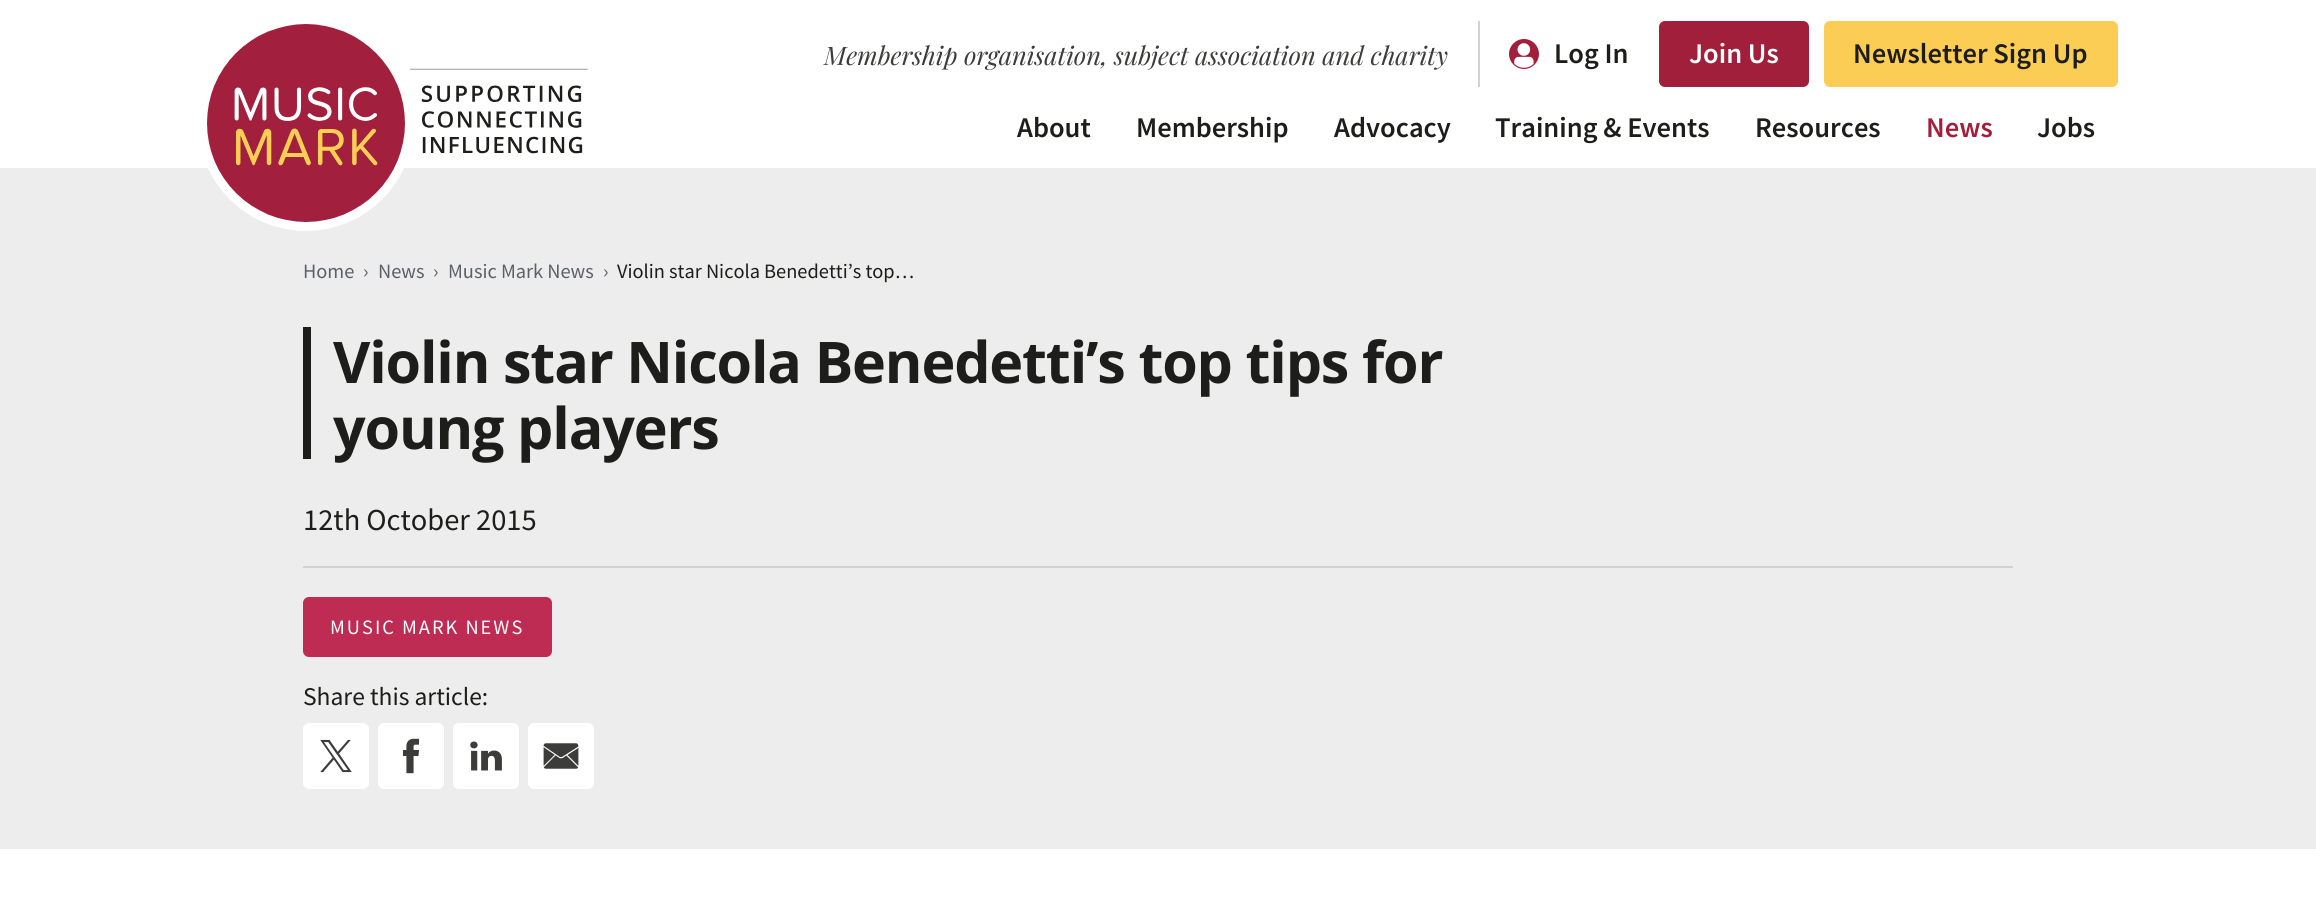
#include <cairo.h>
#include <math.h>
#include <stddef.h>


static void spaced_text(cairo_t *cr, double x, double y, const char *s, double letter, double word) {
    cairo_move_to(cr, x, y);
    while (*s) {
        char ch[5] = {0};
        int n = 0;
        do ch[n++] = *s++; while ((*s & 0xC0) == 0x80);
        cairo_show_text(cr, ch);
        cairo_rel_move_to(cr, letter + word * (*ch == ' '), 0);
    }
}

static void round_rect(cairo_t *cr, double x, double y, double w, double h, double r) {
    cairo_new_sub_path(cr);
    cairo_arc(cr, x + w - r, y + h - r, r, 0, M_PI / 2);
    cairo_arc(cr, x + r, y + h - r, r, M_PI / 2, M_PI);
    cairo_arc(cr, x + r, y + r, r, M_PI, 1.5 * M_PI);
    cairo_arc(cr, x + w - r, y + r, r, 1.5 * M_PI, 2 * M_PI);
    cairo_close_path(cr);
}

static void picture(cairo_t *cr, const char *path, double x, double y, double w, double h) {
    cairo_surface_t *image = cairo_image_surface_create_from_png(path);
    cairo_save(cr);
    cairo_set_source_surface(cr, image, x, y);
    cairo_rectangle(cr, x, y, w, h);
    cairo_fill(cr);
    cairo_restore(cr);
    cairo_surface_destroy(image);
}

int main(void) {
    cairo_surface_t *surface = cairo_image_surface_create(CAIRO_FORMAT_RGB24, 2316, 917);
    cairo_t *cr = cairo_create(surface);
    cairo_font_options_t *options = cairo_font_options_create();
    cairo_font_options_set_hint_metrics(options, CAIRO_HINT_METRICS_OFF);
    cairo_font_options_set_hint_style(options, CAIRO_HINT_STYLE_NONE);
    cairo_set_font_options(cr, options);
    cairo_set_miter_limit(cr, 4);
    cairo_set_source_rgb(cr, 1, 1, 1);
    cairo_paint(cr);
    cairo_set_source_rgb(cr, 0.929, 0.929, 0.929);
    cairo_rectangle(cr, 0, 168, 2316, 681);
    cairo_fill(cr);
    picture(cr, "img1.png", 207, 24, 381, 207);
    cairo_select_font_face(cr, "Playfair Display", CAIRO_FONT_SLANT_ITALIC, CAIRO_FONT_WEIGHT_NORMAL);
    cairo_set_font_size(cr, 25.5);
    cairo_set_source_rgb(cr, 0.235, 0.235, 0.231);
    cairo_move_to(cr, 824, 65);
    cairo_show_text(cr, "Membership organisation, subject association and charity");
    cairo_set_source_rgb(cr, 0.824, 0.824, 0.824);
    cairo_rectangle(cr, 1478, 21, 2, 66);
    cairo_fill(cr);
    picture(cr, "img2.png", 1509, 39, 30, 30);
    cairo_select_font_face(cr, "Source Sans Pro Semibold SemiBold", CAIRO_FONT_SLANT_NORMAL, CAIRO_FONT_WEIGHT_NORMAL);
    cairo_set_font_size(cr, 28.5);
    cairo_set_source_rgb(cr, 0.114, 0.114, 0.106);
    cairo_move_to(cr, 1554, 63);
    cairo_show_text(cr, "Log In");
    cairo_set_source_rgb(cr, 0.635, 0.122, 0.235);
    round_rect(cr, 1659, 21, 150, 66, 6);
    cairo_fill(cr);
    cairo_set_source_rgb(cr, 1, 1, 1);
    cairo_move_to(cr, 1689, 63);
    cairo_show_text(cr, "Join Us");
    cairo_set_source_rgb(cr, 0.984, 0.804, 0.329);
    round_rect(cr, 1824, 21, 294, 66, 6);
    cairo_fill(cr);
    cairo_set_source_rgb(cr, 0.114, 0.114, 0.106);
    cairo_move_to(cr, 1853, 63);
    cairo_show_text(cr, "Newsletter Sign Up");
    cairo_move_to(cr, 1017, 137);
    cairo_show_text(cr, "About");
    cairo_move_to(cr, 1136, 137);
    cairo_show_text(cr, "Membership");
    cairo_move_to(cr, 1334, 137);
    cairo_show_text(cr, "Advocacy");
    cairo_move_to(cr, 1495, 137);
    cairo_show_text(cr, "Training & Events");
    cairo_move_to(cr, 1755, 137);
    cairo_show_text(cr, "Resources");
    cairo_set_source_rgb(cr, 0.635, 0.122, 0.235);
    cairo_move_to(cr, 1926, 137);
    cairo_show_text(cr, "News");
    cairo_set_source_rgb(cr, 0.114, 0.114, 0.106);
    cairo_move_to(cr, 2037, 137);
    cairo_show_text(cr, "Jobs");
    cairo_select_font_face(cr, "Source Sans Pro", CAIRO_FONT_SLANT_NORMAL, CAIRO_FONT_WEIGHT_NORMAL);
    cairo_set_font_size(cr, 20.4);
    cairo_set_source_rgb(cr, 0.357, 0.38, 0.404);
    cairo_move_to(cr, 303, 278);
    cairo_show_text(cr, "Home");
    cairo_move_to(cr, 363, 278);
    cairo_show_text(cr, "›");
    cairo_move_to(cr, 378, 278);
    cairo_show_text(cr, "News");
    cairo_move_to(cr, 433, 278);
    cairo_show_text(cr, "›");
    cairo_move_to(cr, 448, 278);
    cairo_show_text(cr, "Music Mark News");
    cairo_move_to(cr, 603, 278);
    cairo_show_text(cr, "›");
    cairo_set_source_rgb(cr, 0.114, 0.114, 0.106);
    cairo_move_to(cr, 617, 278);
    cairo_show_text(cr, "Violin star Nicola Benedetti’s top…");
    cairo_rectangle(cr, 303, 327, 8, 132);
    cairo_fill(cr);
    cairo_select_font_face(cr, "Open Sans", CAIRO_FONT_SLANT_NORMAL, CAIRO_FONT_WEIGHT_BOLD);
    cairo_set_font_size(cr, 57.4);
    spaced_text(cr, 333, 383, "Violin star Nicola Benedetti’s top tips for", -1.15, 0);
    spaced_text(cr, 333, 449, "young players", -1.15, 0);
    cairo_select_font_face(cr, "Source Sans Pro", CAIRO_FONT_SLANT_NORMAL, CAIRO_FONT_WEIGHT_NORMAL);
    cairo_set_font_size(cr, 30.5);
    cairo_move_to(cr, 303, 530);
    cairo_show_text(cr, "12th October 2015");
    cairo_set_source_rgb(cr, 0.824, 0.824, 0.824);
    cairo_rectangle(cr, 303, 566, 1710, 2);
    cairo_fill(cr);
    cairo_set_source_rgb(cr, 0.749, 0.173, 0.325);
    round_rect(cr, 303, 597, 249, 60, 6);
    cairo_fill(cr);
    cairo_set_font_size(cr, 20.4);
    cairo_set_source_rgb(cr, 1, 1, 1);
    spaced_text(cr, 330, 634, "MUSIC MARK NEWS", 2, 0);
    cairo_set_font_size(cr, 25.5);
    cairo_set_source_rgb(cr, 0.114, 0.114, 0.106);
    cairo_move_to(cr, 303, 705);
    cairo_show_text(cr, "Share this article:");
    cairo_set_source_rgb(cr, 1, 1, 1);
    round_rect(cr, 303, 723, 66, 66, 6);
    cairo_fill(cr);
    picture(cr, "img3.png", 320, 739, 32, 34);
    round_rect(cr, 378, 723, 66, 66, 6);
    cairo_fill(cr);
    picture(cr, "img4.png", 402, 738, 18, 36);
    round_rect(cr, 453, 723, 66, 66, 6);
    cairo_fill(cr);
    picture(cr, "img5.png", 470, 741, 32, 30);
    round_rect(cr, 528, 723, 66, 66, 6);
    cairo_fill(cr);
    picture(cr, "img6.png", 543, 743, 36, 26);
    cairo_surface_write_to_png(surface, "page.png");
    cairo_font_options_destroy(options);
    cairo_destroy(cr);
    cairo_surface_destroy(surface);
    return 0;
}
